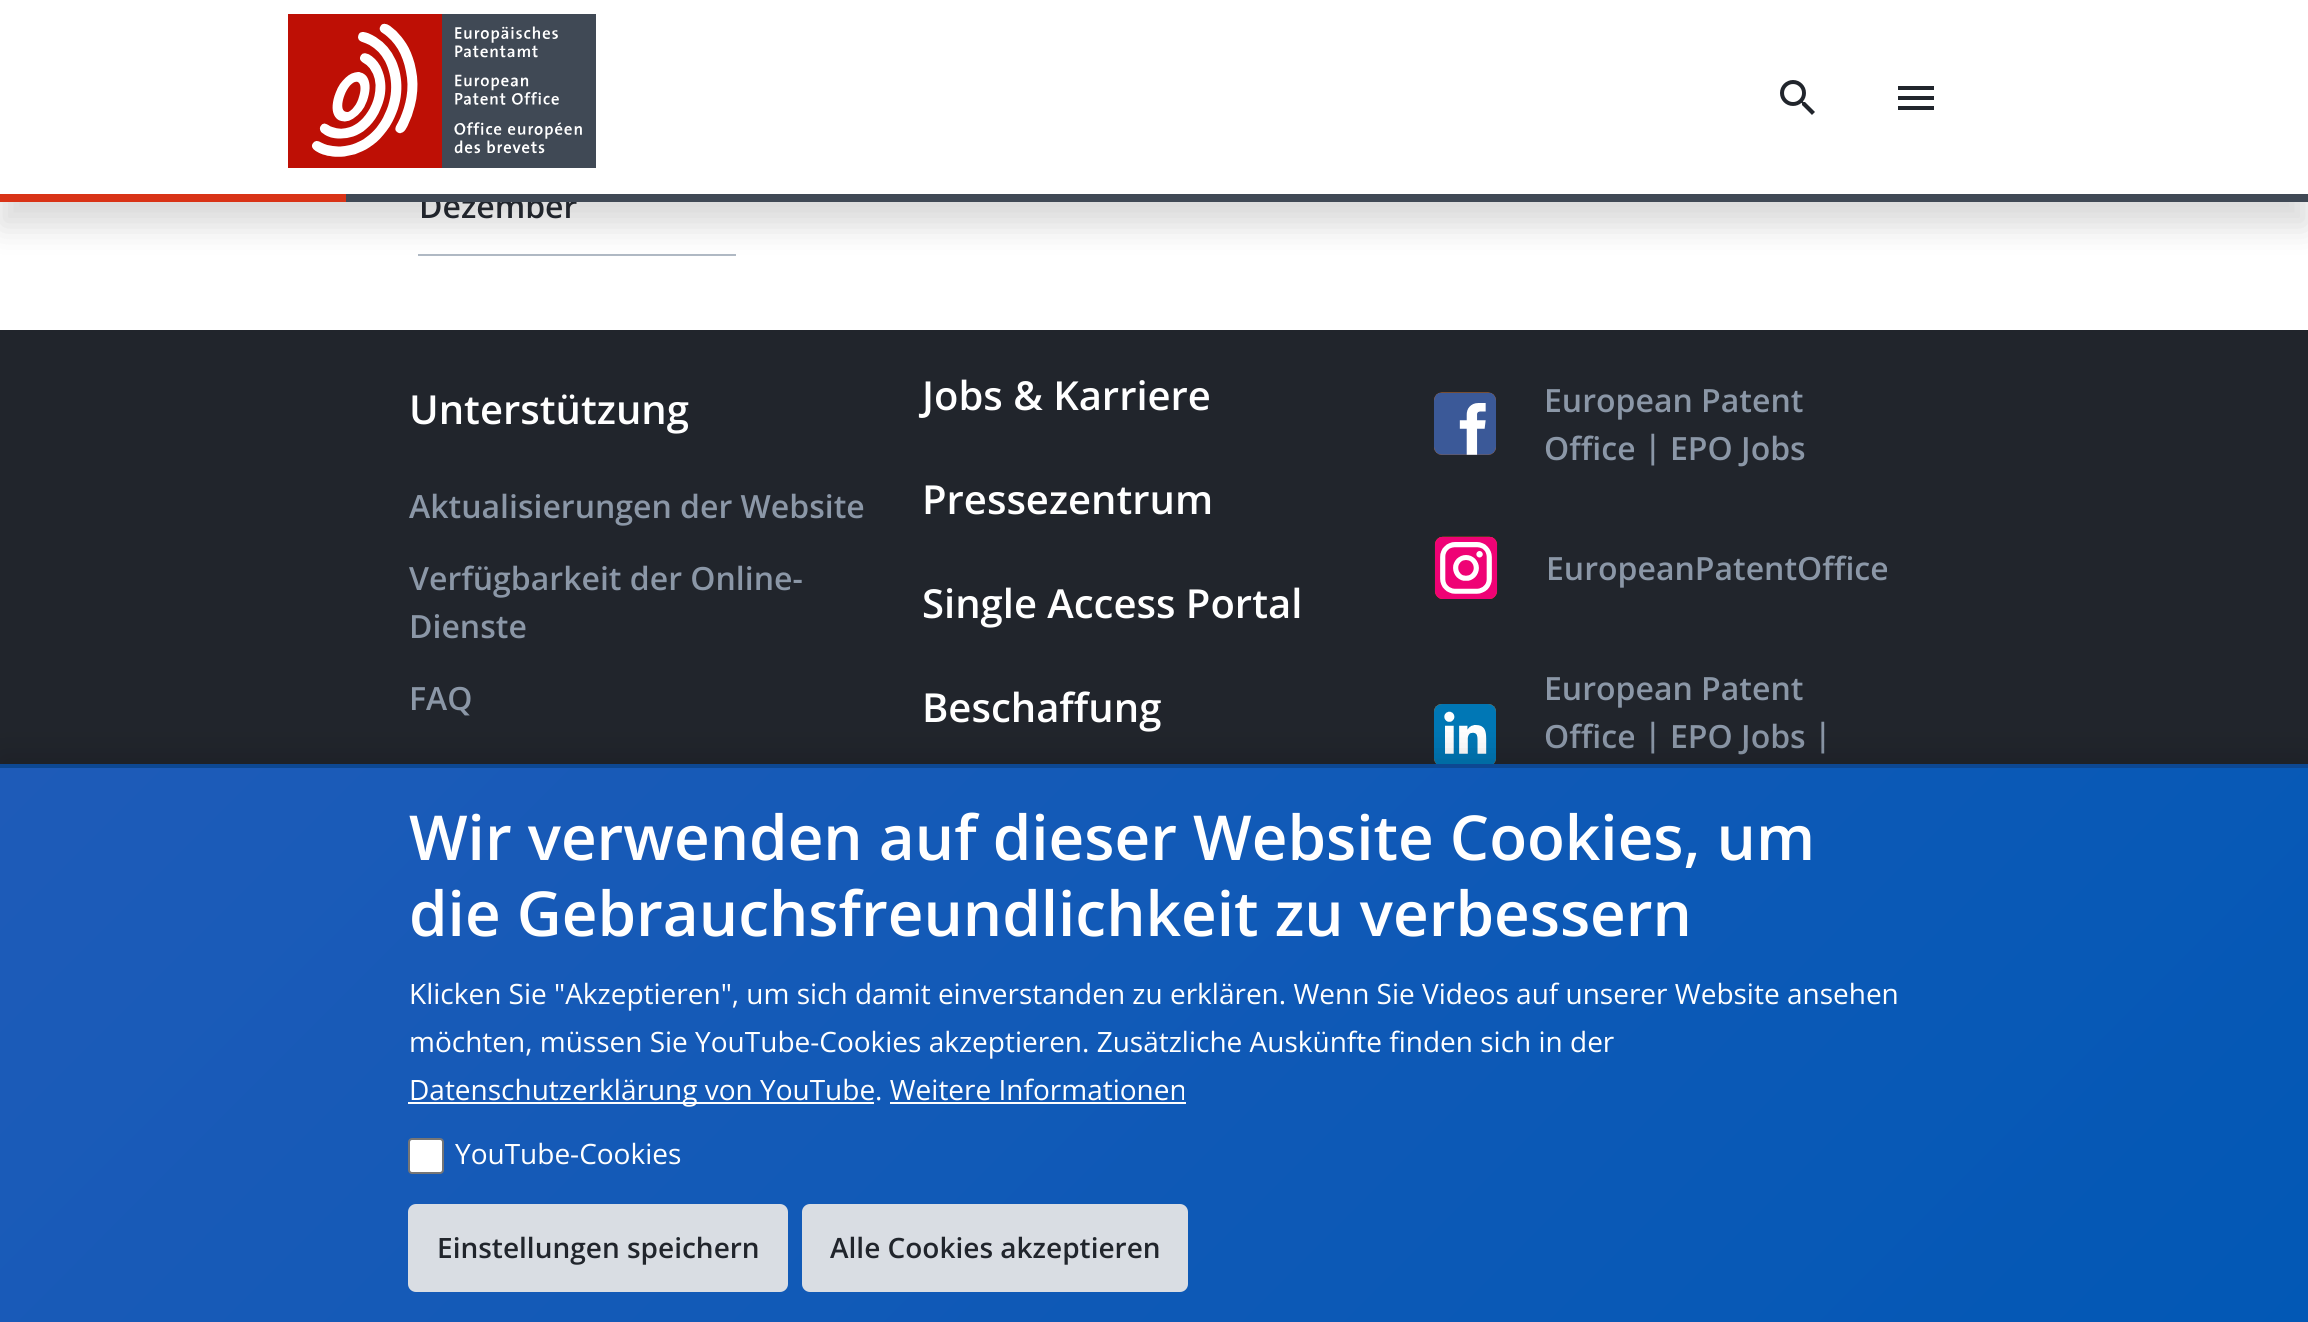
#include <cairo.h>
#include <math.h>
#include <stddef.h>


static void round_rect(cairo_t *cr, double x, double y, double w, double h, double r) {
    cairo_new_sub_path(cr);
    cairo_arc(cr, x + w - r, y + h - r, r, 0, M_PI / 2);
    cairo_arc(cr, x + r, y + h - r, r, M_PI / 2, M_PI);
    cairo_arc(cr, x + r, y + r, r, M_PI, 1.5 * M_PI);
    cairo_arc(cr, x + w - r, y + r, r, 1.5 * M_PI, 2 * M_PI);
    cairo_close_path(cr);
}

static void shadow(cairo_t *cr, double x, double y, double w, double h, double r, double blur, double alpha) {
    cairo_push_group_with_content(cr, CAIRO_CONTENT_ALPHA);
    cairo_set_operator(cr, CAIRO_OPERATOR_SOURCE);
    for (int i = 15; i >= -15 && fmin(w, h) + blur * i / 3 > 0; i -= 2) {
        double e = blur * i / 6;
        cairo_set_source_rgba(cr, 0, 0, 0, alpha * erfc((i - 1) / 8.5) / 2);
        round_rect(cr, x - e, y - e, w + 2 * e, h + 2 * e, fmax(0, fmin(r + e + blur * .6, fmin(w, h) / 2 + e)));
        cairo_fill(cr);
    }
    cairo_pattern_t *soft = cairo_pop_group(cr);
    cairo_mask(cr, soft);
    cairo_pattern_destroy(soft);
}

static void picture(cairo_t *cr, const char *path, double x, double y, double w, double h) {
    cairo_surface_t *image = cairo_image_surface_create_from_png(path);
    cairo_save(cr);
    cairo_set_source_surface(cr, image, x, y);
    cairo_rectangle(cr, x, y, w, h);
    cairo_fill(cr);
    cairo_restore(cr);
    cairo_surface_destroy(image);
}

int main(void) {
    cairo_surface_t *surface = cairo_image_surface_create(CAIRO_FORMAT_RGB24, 2308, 1322);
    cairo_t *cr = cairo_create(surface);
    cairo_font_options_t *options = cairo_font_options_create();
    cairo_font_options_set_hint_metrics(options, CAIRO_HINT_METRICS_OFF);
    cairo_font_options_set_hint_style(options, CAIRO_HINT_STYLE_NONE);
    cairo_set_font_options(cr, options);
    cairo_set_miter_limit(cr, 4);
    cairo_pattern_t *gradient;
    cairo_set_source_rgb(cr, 1, 1, 1);
    cairo_paint(cr);
    cairo_set_source_rgb(cr, 0.69, 0.725, 0.769);
    cairo_rectangle(cr, 418, 254, 318, 2);
    cairo_fill(cr);
    cairo_set_source_rgb(cr, 0, 0, 0);
    shadow(cr, 0, 24, 2308, 202, 0, 16, 0.15);
    cairo_select_font_face(cr, "Open Sans SemiBold", CAIRO_FONT_SLANT_NORMAL, CAIRO_FONT_WEIGHT_NORMAL);
    cairo_set_font_size(cr, 32);
    cairo_set_source_rgb(cr, 0.129, 0.145, 0.173);
    cairo_move_to(cr, 419, 218);
    cairo_show_text(cr, "Dezember");
    cairo_set_source_rgb(cr, 1, 1, 1);
    cairo_rectangle(cr, 0, 0, 2308, 194);
    cairo_fill(cr);
    picture(cr, "img1.png", 0, 194, 2308, 8);
    picture(cr, "img2.png", 288, 14, 308, 154);
    picture(cr, "img3.png", 1780, 80, 35, 35);
    cairo_set_source_rgb(cr, 0.129, 0.145, 0.173);
    cairo_new_path(cr);
    cairo_move_to(cr, 1898, 86);
    cairo_line_to(cr, 1934, 86);
    cairo_line_to(cr, 1934, 90);
    cairo_line_to(cr, 1898, 90);
    cairo_close_path(cr);
    cairo_move_to(cr, 1898, 100);
    cairo_line_to(cr, 1898, 96);
    cairo_line_to(cr, 1934, 96);
    cairo_line_to(cr, 1934, 100);
    cairo_close_path(cr);
    cairo_move_to(cr, 1898, 110);
    cairo_line_to(cr, 1898, 106);
    cairo_line_to(cr, 1934, 106);
    cairo_line_to(cr, 1934, 110);
    cairo_close_path(cr);
    cairo_fill(cr);
    cairo_rectangle(cr, 0, 330, 2308, 434);
    cairo_fill(cr);
    cairo_set_font_size(cr, 40);
    cairo_set_source_rgb(cr, 1, 1, 1);
    cairo_move_to(cr, 409, 424);
    cairo_show_text(cr, "Unterstützung");
    cairo_set_font_size(cr, 32);
    cairo_set_source_rgb(cr, 0.545, 0.592, 0.655);
    cairo_move_to(cr, 409, 518);
    cairo_show_text(cr, "Aktualisierungen der Website");
    cairo_move_to(cr, 409, 590);
    cairo_show_text(cr, "Verfügbarkeit der Online-");
    cairo_move_to(cr, 409, 638);
    cairo_show_text(cr, "Dienste");
    cairo_move_to(cr, 409, 710);
    cairo_show_text(cr, "FAQ");
    cairo_set_font_size(cr, 40);
    cairo_set_source_rgb(cr, 1, 1, 1);
    cairo_move_to(cr, 922, 410);
    cairo_show_text(cr, "Jobs & Karriere");
    cairo_move_to(cr, 922, 514);
    cairo_show_text(cr, "Pressezentrum");
    cairo_move_to(cr, 922, 618);
    cairo_show_text(cr, "Single Access Portal");
    cairo_move_to(cr, 922, 722);
    cairo_show_text(cr, "Beschaffung");
    picture(cr, "img4.png", 1434, 392, 62, 63);
    cairo_set_font_size(cr, 32);
    cairo_set_source_rgb(cr, 0.545, 0.592, 0.655);
    cairo_move_to(cr, 1544, 412);
    cairo_show_text(cr, "European Patent");
    cairo_move_to(cr, 1544, 460);
    cairo_show_text(cr, "Office");
    cairo_move_to(cr, 1644, 458);
    cairo_show_text(cr, "|");
    cairo_move_to(cr, 1670, 460);
    cairo_show_text(cr, "EPO Jobs");
    picture(cr, "img5.png", 1434, 536, 64, 63);
    cairo_move_to(cr, 1546, 580);
    cairo_show_text(cr, "EuropeanPatentOffice");
    picture(cr, "img6.png", 1434, 704, 62, 60);
    cairo_move_to(cr, 1544, 700);
    cairo_show_text(cr, "European Patent");
    cairo_move_to(cr, 1544, 748);
    cairo_show_text(cr, "Office");
    cairo_move_to(cr, 1644, 746);
    cairo_show_text(cr, "|");
    cairo_move_to(cr, 1670, 748);
    cairo_show_text(cr, "EPO Jobs");
    cairo_move_to(cr, 1814, 746);
    cairo_show_text(cr, "|");
    cairo_set_source_rgb(cr, 0, 0, 0);
    shadow(cr, 0, 756, 2308, 558, 0, 16, 0.15);
    gradient = cairo_pattern_create_linear(438, 330, 1870, 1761);
    cairo_pattern_add_color_stop_rgba(gradient, 0, 0.118, 0.357, 0.722, 1);
    cairo_pattern_add_color_stop_rgba(gradient, 1, 0.008, 0.345, 0.71, 1);
    cairo_set_source(cr, gradient);
    cairo_pattern_destroy(gradient);
    cairo_rectangle(cr, 0, 768, 2308, 554);
    cairo_fill(cr);
    cairo_set_source_rgb(cr, 0.051, 0.282, 0.573);
    cairo_rectangle(cr, 0, 764, 2308, 4);
    cairo_fill(cr);
    cairo_select_font_face(cr, "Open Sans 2 SemiBold", CAIRO_FONT_SLANT_NORMAL, CAIRO_FONT_WEIGHT_NORMAL);
    cairo_set_font_size(cr, 62);
    cairo_set_source_rgb(cr, 1, 1, 1);
    cairo_move_to(cr, 409, 860);
    cairo_show_text(cr, "Wir verwenden auf dieser Website Cookies, um");
    cairo_move_to(cr, 409, 936);
    cairo_show_text(cr, "die Gebrauchsfreundlichkeit zu verbessern");
    cairo_select_font_face(cr, "Open Sans", CAIRO_FONT_SLANT_NORMAL, CAIRO_FONT_WEIGHT_NORMAL);
    cairo_set_font_size(cr, 28);
    cairo_move_to(cr, 409, 1004);
    cairo_show_text(cr, "Klicken Sie \"Akzeptieren\", um sich damit einverstanden zu erklären. Wenn Sie Videos auf unserer Website ansehen");
    cairo_move_to(cr, 409, 1052);
    cairo_show_text(cr, "möchten, müssen Sie YouTube-Cookies akzeptieren. Zusätzliche Auskünfte finden sich in der");
    cairo_rectangle(cr, 408, 1102, 466, 2);
    cairo_fill(cr);
    cairo_move_to(cr, 409, 1100);
    cairo_show_text(cr, "Datenschutzerklärung von YouTube. Weitere Informationen");
    cairo_rectangle(cr, 890, 1102, 296, 2);
    cairo_fill(cr);
    round_rect(cr, 409, 1139, 34, 34, 3);
    cairo_fill_preserve(cr);
    cairo_set_source_rgb(cr, 0.463, 0.463, 0.463);
    cairo_stroke(cr);
    cairo_set_source_rgb(cr, 1, 1, 1);
    cairo_move_to(cr, 455, 1164);
    cairo_show_text(cr, "YouTube-Cookies");
    cairo_set_source_rgb(cr, 0.851, 0.867, 0.89);
    round_rect(cr, 408, 1204, 380, 88, 8);
    cairo_fill(cr);
    cairo_select_font_face(cr, "Open Sans SemiBold", CAIRO_FONT_SLANT_NORMAL, CAIRO_FONT_WEIGHT_NORMAL);
    cairo_set_source_rgb(cr, 0.129, 0.145, 0.173);
    cairo_move_to(cr, 437, 1258);
    cairo_show_text(cr, "Einstellungen speichern");
    cairo_set_source_rgb(cr, 0.851, 0.867, 0.89);
    round_rect(cr, 802, 1204, 386, 88, 8);
    cairo_fill(cr);
    cairo_set_source_rgb(cr, 0.129, 0.145, 0.173);
    cairo_move_to(cr, 830, 1258);
    cairo_show_text(cr, "Alle Cookies akzeptieren");
    cairo_surface_write_to_png(surface, "page.png");
    cairo_font_options_destroy(options);
    cairo_destroy(cr);
    cairo_surface_destroy(surface);
    return 0;
}
